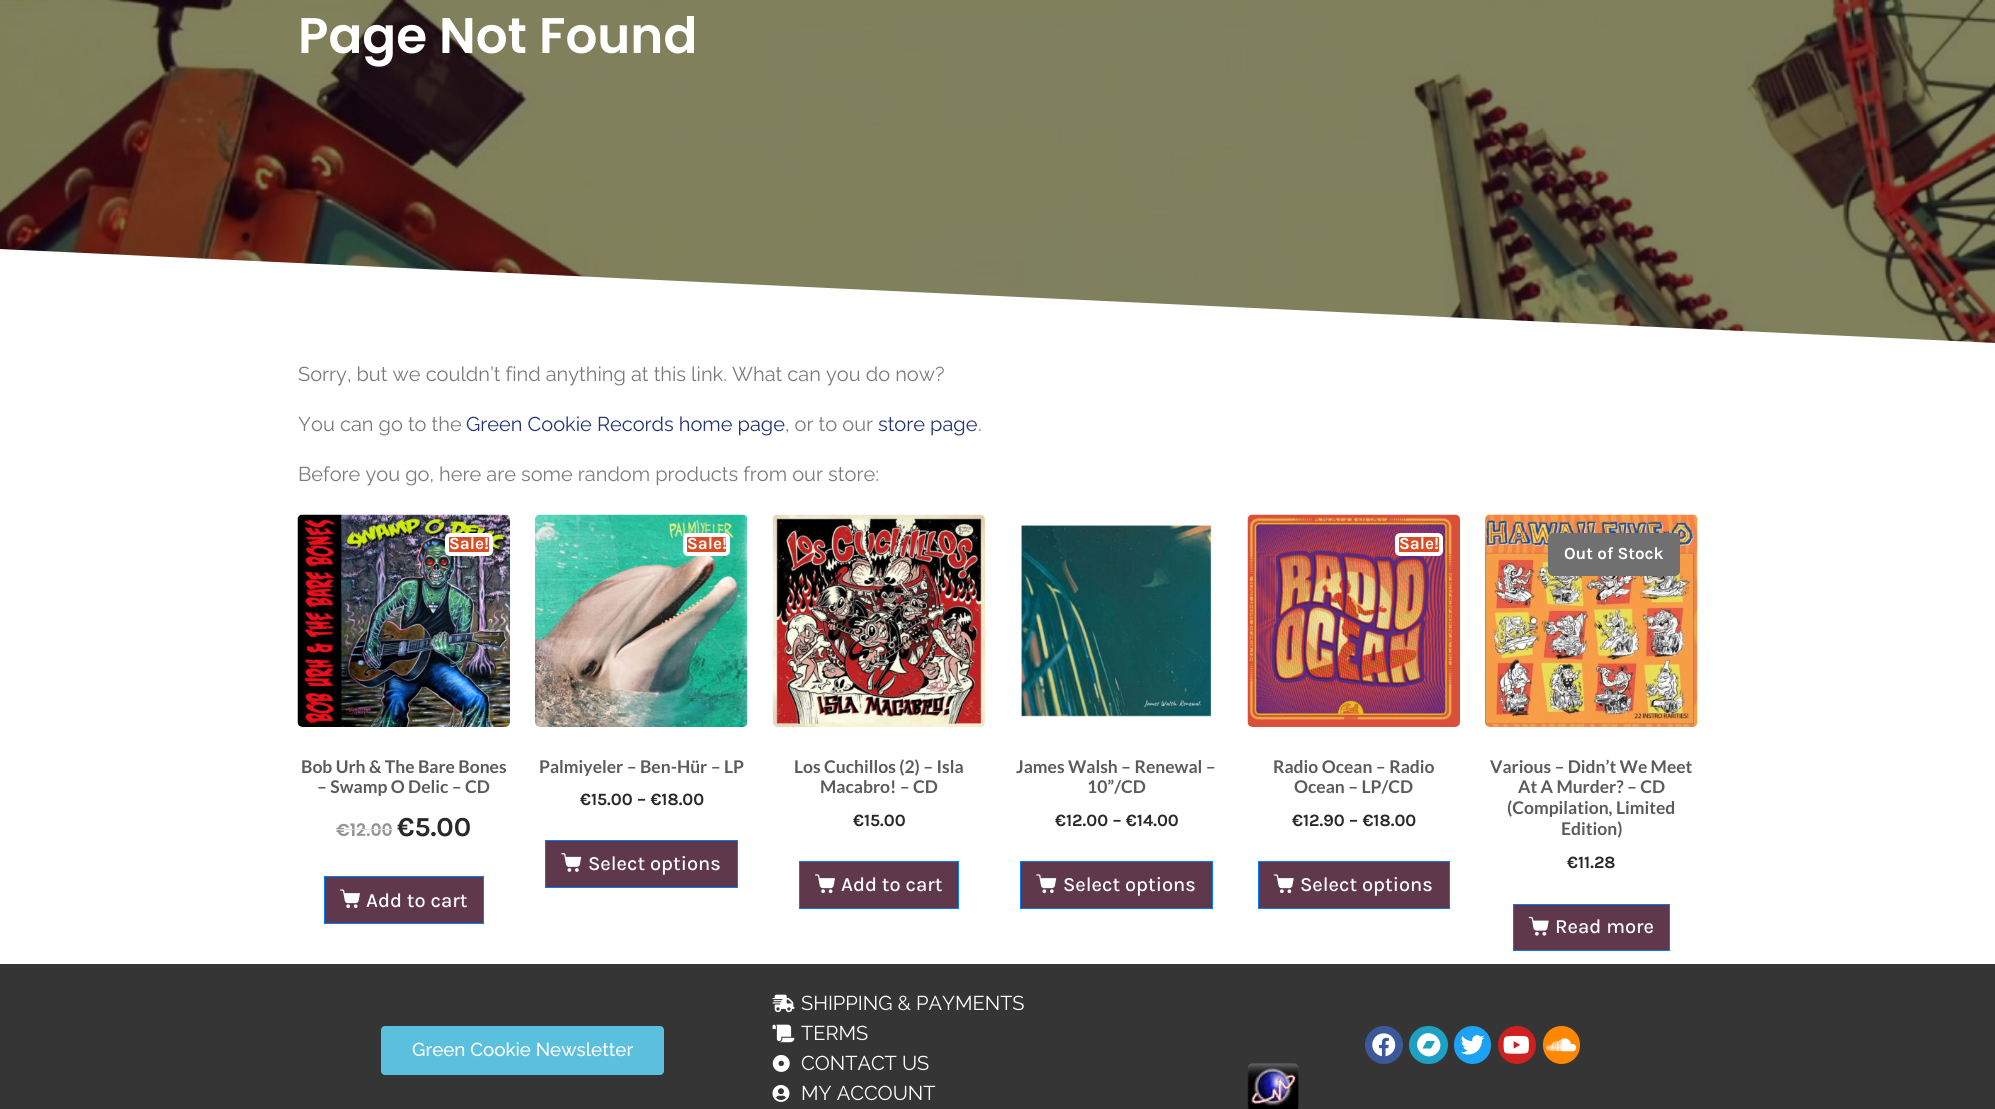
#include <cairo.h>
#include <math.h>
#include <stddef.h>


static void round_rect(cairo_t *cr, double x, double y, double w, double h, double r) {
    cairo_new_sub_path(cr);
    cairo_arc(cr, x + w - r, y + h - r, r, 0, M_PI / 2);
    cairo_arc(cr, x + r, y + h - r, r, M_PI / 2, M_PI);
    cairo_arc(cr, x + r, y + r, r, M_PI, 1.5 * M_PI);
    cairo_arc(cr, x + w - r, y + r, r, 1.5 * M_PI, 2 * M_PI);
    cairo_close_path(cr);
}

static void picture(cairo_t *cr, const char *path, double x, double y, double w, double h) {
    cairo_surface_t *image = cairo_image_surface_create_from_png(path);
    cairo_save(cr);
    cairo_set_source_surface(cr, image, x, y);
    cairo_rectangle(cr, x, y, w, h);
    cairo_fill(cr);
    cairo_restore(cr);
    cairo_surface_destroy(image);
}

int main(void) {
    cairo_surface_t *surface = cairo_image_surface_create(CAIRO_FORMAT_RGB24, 1995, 1109);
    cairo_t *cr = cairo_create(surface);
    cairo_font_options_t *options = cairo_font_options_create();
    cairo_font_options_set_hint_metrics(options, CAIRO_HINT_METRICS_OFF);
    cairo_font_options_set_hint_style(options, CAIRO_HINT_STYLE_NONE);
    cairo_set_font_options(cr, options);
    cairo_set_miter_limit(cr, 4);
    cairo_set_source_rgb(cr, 1, 1, 1);
    cairo_paint(cr);
    picture(cr, "img1.png", 0, 0, 1995, 343);
    cairo_select_font_face(cr, "Poppins SemiBold", CAIRO_FONT_SLANT_NORMAL, CAIRO_FONT_WEIGHT_NORMAL);
    cairo_set_font_size(cr, 50);
    cairo_set_source_rgb(cr, 1, 1, 1);
    cairo_move_to(cr, 298, 53);
    cairo_show_text(cr, "Page Not Found");
    cairo_new_path(cr);
    cairo_move_to(cr, 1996, 343);
    cairo_line_to(cr, 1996, 349);
    cairo_line_to(cr, -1, 349);
    cairo_line_to(cr, -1, 249);
    cairo_close_path(cr);
    cairo_fill(cr);
    cairo_select_font_face(cr, "Raleway", CAIRO_FONT_SLANT_NORMAL, CAIRO_FONT_WEIGHT_NORMAL);
    cairo_set_font_size(cr, 20);
    cairo_set_source_rgb(cr, 0.478, 0.478, 0.478);
    cairo_move_to(cr, 298, 381);
    cairo_show_text(cr, "Sorry, but we couldn’t find anything at this link. What can you do now?");
    cairo_move_to(cr, 298, 431);
    cairo_show_text(cr, "You can go to the");
    cairo_set_source_rgb(cr, 0.133, 0.208, 0.471);
    cairo_move_to(cr, 466, 431);
    cairo_show_text(cr, "Green Cookie Records home page");
    cairo_set_source_rgb(cr, 0.478, 0.478, 0.478);
    cairo_move_to(cr, 785, 431);
    cairo_show_text(cr, ", or to our");
    cairo_set_source_rgb(cr, 0.133, 0.208, 0.471);
    cairo_move_to(cr, 878, 431);
    cairo_show_text(cr, "store page");
    cairo_set_source_rgb(cr, 0.478, 0.478, 0.478);
    cairo_move_to(cr, 978, 431);
    cairo_show_text(cr, ".");
    cairo_move_to(cr, 298, 481);
    cairo_show_text(cr, "Before you go, here are some random products from our store:");
    picture(cr, "img2.png", 297, 514, 213, 213);
    cairo_set_source_rgb(cr, 0.855, 0.298, 0.149);
    round_rect(cr, 447, 535, 44, 19, 3);
    cairo_fill_preserve(cr);
    cairo_set_source_rgb(cr, 1, 1, 1);
    cairo_set_line_width(cr, 4);
    cairo_stroke(cr);
    cairo_select_font_face(cr, "Karla", CAIRO_FONT_SLANT_NORMAL, CAIRO_FONT_WEIGHT_BOLD);
    cairo_set_font_size(cr, 17);
    cairo_move_to(cr, 449, 549);
    cairo_show_text(cr, "Sale!");
    cairo_select_font_face(cr, "Lato", CAIRO_FONT_SLANT_NORMAL, CAIRO_FONT_WEIGHT_BOLD);
    cairo_set_font_size(cr, 17.5);
    cairo_set_source_rgb(cr, 0.357, 0.357, 0.357);
    cairo_move_to(cr, 301, 773);
    cairo_show_text(cr, "Bob Urh & The Bare Bones");
    cairo_move_to(cr, 317, 793);
    cairo_show_text(cr, "– Swamp O Delic – CD");
    cairo_select_font_face(cr, "Poppins SemiBold", CAIRO_FONT_SLANT_NORMAL, CAIRO_FONT_WEIGHT_NORMAL);
    cairo_set_font_size(cr, 17.25);
    cairo_set_source_rgb(cr, 0.58, 0.58, 0.58);
    cairo_move_to(cr, 336, 836);
    cairo_show_text(cr, "€12.00");
    cairo_set_source_rgb(cr, 0.867, 0.867, 0.867);
    cairo_rectangle(cr, 336, 829, 57, 1);
    cairo_fill(cr);
    cairo_select_font_face(cr, "Karla", CAIRO_FONT_SLANT_NORMAL, CAIRO_FONT_WEIGHT_BOLD);
    cairo_set_font_size(cr, 27.5);
    cairo_set_source_rgb(cr, 0.161, 0.161, 0.161);
    cairo_move_to(cr, 397, 836);
    cairo_show_text(cr, "€5.00");
    cairo_set_source_rgb(cr, 0.373, 0.22, 0.298);
    cairo_rectangle(cr, 324.5, 876.5, 159, 47);
    cairo_fill_preserve(cr);
    cairo_set_source_rgb(cr, 0, 0.482, 1);
    cairo_set_line_width(cr, 1);
    cairo_stroke(cr);
    picture(cr, "img3.png", 340, 889, 20, 20);
    cairo_select_font_face(cr, "Karla Medium", CAIRO_FONT_SLANT_NORMAL, CAIRO_FONT_WEIGHT_NORMAL);
    cairo_set_font_size(cr, 20);
    cairo_set_source_rgb(cr, 1, 1, 1);
    cairo_move_to(cr, 366, 907);
    cairo_show_text(cr, "Add to cart");
    picture(cr, "img4.png", 535, 514, 213, 213);
    cairo_set_source_rgb(cr, 0.855, 0.298, 0.149);
    round_rect(cr, 685, 535, 43, 19, 3);
    cairo_fill_preserve(cr);
    cairo_set_source_rgb(cr, 1, 1, 1);
    cairo_set_line_width(cr, 4);
    cairo_stroke(cr);
    cairo_select_font_face(cr, "Karla", CAIRO_FONT_SLANT_NORMAL, CAIRO_FONT_WEIGHT_BOLD);
    cairo_set_font_size(cr, 17);
    cairo_move_to(cr, 687, 549);
    cairo_show_text(cr, "Sale!");
    cairo_select_font_face(cr, "Lato", CAIRO_FONT_SLANT_NORMAL, CAIRO_FONT_WEIGHT_BOLD);
    cairo_set_font_size(cr, 17.5);
    cairo_set_source_rgb(cr, 0.357, 0.357, 0.357);
    cairo_move_to(cr, 539, 773);
    cairo_show_text(cr, "Palmiyeler – Ben-Hür – LP");
    cairo_select_font_face(cr, "Karla", CAIRO_FONT_SLANT_NORMAL, CAIRO_FONT_WEIGHT_BOLD);
    cairo_set_font_size(cr, 17.25);
    cairo_set_source_rgb(cr, 0.161, 0.161, 0.161);
    cairo_move_to(cr, 580, 805);
    cairo_show_text(cr, "€15.00 – €18.00");
    cairo_set_source_rgb(cr, 0.373, 0.22, 0.298);
    cairo_rectangle(cr, 545.5, 840.5, 192, 47);
    cairo_fill_preserve(cr);
    cairo_set_source_rgb(cr, 0, 0.482, 1);
    cairo_set_line_width(cr, 1);
    cairo_stroke(cr);
    picture(cr, "img5.png", 561, 853, 21, 19);
    cairo_select_font_face(cr, "Karla Medium", CAIRO_FONT_SLANT_NORMAL, CAIRO_FONT_WEIGHT_NORMAL);
    cairo_set_font_size(cr, 20);
    cairo_set_source_rgb(cr, 1, 1, 1);
    cairo_move_to(cr, 588, 870);
    cairo_show_text(cr, "Select options");
    picture(cr, "img6.png", 772, 514, 213, 213);
    cairo_select_font_face(cr, "Lato", CAIRO_FONT_SLANT_NORMAL, CAIRO_FONT_WEIGHT_BOLD);
    cairo_set_font_size(cr, 17.5);
    cairo_set_source_rgb(cr, 0.357, 0.357, 0.357);
    cairo_move_to(cr, 794, 773);
    cairo_show_text(cr, "Los Cuchillos (2) – Isla");
    cairo_move_to(cr, 820, 793);
    cairo_show_text(cr, "Macabro! – CD");
    cairo_select_font_face(cr, "Karla", CAIRO_FONT_SLANT_NORMAL, CAIRO_FONT_WEIGHT_BOLD);
    cairo_set_font_size(cr, 17.25);
    cairo_set_source_rgb(cr, 0.161, 0.161, 0.161);
    cairo_move_to(cr, 853, 826);
    cairo_show_text(cr, "€15.00");
    cairo_set_source_rgb(cr, 0.373, 0.22, 0.298);
    cairo_rectangle(cr, 799.5, 861.5, 159, 47);
    cairo_fill_preserve(cr);
    cairo_set_source_rgb(cr, 0, 0.482, 1);
    cairo_stroke(cr);
    picture(cr, "img3.png", 815, 874, 20, 20);
    cairo_select_font_face(cr, "Karla Medium", CAIRO_FONT_SLANT_NORMAL, CAIRO_FONT_WEIGHT_NORMAL);
    cairo_set_font_size(cr, 20);
    cairo_set_source_rgb(cr, 1, 1, 1);
    cairo_move_to(cr, 841, 891);
    cairo_show_text(cr, "Add to cart");
    picture(cr, "img7.png", 1021, 520, 193, 199);
    cairo_select_font_face(cr, "Lato", CAIRO_FONT_SLANT_NORMAL, CAIRO_FONT_WEIGHT_BOLD);
    cairo_set_font_size(cr, 17.5);
    cairo_set_source_rgb(cr, 0.357, 0.357, 0.357);
    cairo_move_to(cr, 1016, 773);
    cairo_show_text(cr, "James Walsh – Renewal –");
    cairo_move_to(cr, 1087, 793);
    cairo_show_text(cr, "10”/CD");
    cairo_select_font_face(cr, "Karla", CAIRO_FONT_SLANT_NORMAL, CAIRO_FONT_WEIGHT_BOLD);
    cairo_set_font_size(cr, 17.25);
    cairo_set_source_rgb(cr, 0.161, 0.161, 0.161);
    cairo_move_to(cr, 1055, 826);
    cairo_show_text(cr, "€12.00 – €14.00");
    cairo_set_source_rgb(cr, 0.373, 0.22, 0.298);
    cairo_rectangle(cr, 1020.5, 861.5, 192, 47);
    cairo_fill_preserve(cr);
    cairo_set_source_rgb(cr, 0, 0.482, 1);
    cairo_stroke(cr);
    picture(cr, "img8.png", 1036, 874, 21, 20);
    cairo_select_font_face(cr, "Karla Medium", CAIRO_FONT_SLANT_NORMAL, CAIRO_FONT_WEIGHT_NORMAL);
    cairo_set_font_size(cr, 20);
    cairo_set_source_rgb(cr, 1, 1, 1);
    cairo_move_to(cr, 1063, 891);
    cairo_show_text(cr, "Select options");
    picture(cr, "img9.png", 1247, 514, 213, 213);
    cairo_set_source_rgb(cr, 0.855, 0.298, 0.149);
    round_rect(cr, 1397, 535, 44, 19, 3);
    cairo_fill_preserve(cr);
    cairo_set_source_rgb(cr, 1, 1, 1);
    cairo_set_line_width(cr, 4);
    cairo_stroke(cr);
    cairo_select_font_face(cr, "Karla", CAIRO_FONT_SLANT_NORMAL, CAIRO_FONT_WEIGHT_BOLD);
    cairo_set_font_size(cr, 17);
    cairo_move_to(cr, 1399, 549);
    cairo_show_text(cr, "Sale!");
    cairo_select_font_face(cr, "Lato", CAIRO_FONT_SLANT_NORMAL, CAIRO_FONT_WEIGHT_BOLD);
    cairo_set_font_size(cr, 17.5);
    cairo_set_source_rgb(cr, 0.357, 0.357, 0.357);
    cairo_move_to(cr, 1273, 773);
    cairo_show_text(cr, "Radio Ocean – Radio");
    cairo_move_to(cr, 1294, 793);
    cairo_show_text(cr, "Ocean – LP/CD");
    cairo_select_font_face(cr, "Karla", CAIRO_FONT_SLANT_NORMAL, CAIRO_FONT_WEIGHT_BOLD);
    cairo_set_font_size(cr, 17.25);
    cairo_set_source_rgb(cr, 0.161, 0.161, 0.161);
    cairo_move_to(cr, 1292, 826);
    cairo_show_text(cr, "€12.90 – €18.00");
    cairo_set_source_rgb(cr, 0.373, 0.22, 0.298);
    cairo_rectangle(cr, 1258.5, 861.5, 191, 47);
    cairo_fill_preserve(cr);
    cairo_set_source_rgb(cr, 0, 0.482, 1);
    cairo_set_line_width(cr, 1);
    cairo_stroke(cr);
    picture(cr, "img10.png", 1273, 874, 21, 20);
    cairo_select_font_face(cr, "Karla Medium", CAIRO_FONT_SLANT_NORMAL, CAIRO_FONT_WEIGHT_NORMAL);
    cairo_set_font_size(cr, 20);
    cairo_set_source_rgb(cr, 1, 1, 1);
    cairo_move_to(cr, 1300, 891);
    cairo_show_text(cr, "Select options");
    picture(cr, "img11.png", 1485, 514, 213, 213);
    cairo_set_source_rgb(cr, 0.439, 0.439, 0.439);
    round_rect(cr, 1548, 533, 132, 43, 5);
    cairo_fill(cr);
    cairo_select_font_face(cr, "Karla", CAIRO_FONT_SLANT_NORMAL, CAIRO_FONT_WEIGHT_BOLD);
    cairo_set_font_size(cr, 17);
    cairo_set_source_rgb(cr, 1, 1, 1);
    cairo_move_to(cr, 1564, 559);
    cairo_show_text(cr, "Out of Stock");
    cairo_select_font_face(cr, "Lato", CAIRO_FONT_SLANT_NORMAL, CAIRO_FONT_WEIGHT_BOLD);
    cairo_set_font_size(cr, 17.5);
    cairo_set_source_rgb(cr, 0.357, 0.357, 0.357);
    cairo_move_to(cr, 1490, 773);
    cairo_show_text(cr, "Various – Didn’t We Meet");
    cairo_move_to(cr, 1518, 793);
    cairo_show_text(cr, "At A Murder? – CD");
    cairo_move_to(cr, 1507, 814);
    cairo_show_text(cr, "(Compilation, Limited");
    cairo_move_to(cr, 1561, 835);
    cairo_show_text(cr, "Edition)");
    cairo_select_font_face(cr, "Karla", CAIRO_FONT_SLANT_NORMAL, CAIRO_FONT_WEIGHT_BOLD);
    cairo_set_font_size(cr, 17.25);
    cairo_set_source_rgb(cr, 0.161, 0.161, 0.161);
    cairo_move_to(cr, 1567, 868);
    cairo_show_text(cr, "€11.28");
    cairo_set_source_rgb(cr, 0.373, 0.22, 0.298);
    cairo_rectangle(cr, 1513.5, 904.5, 156, 46);
    cairo_fill_preserve(cr);
    cairo_set_source_rgb(cr, 0, 0.482, 1);
    cairo_stroke(cr);
    picture(cr, "img12.png", 1528, 916, 21, 20);
    cairo_select_font_face(cr, "Karla Medium", CAIRO_FONT_SLANT_NORMAL, CAIRO_FONT_WEIGHT_NORMAL);
    cairo_set_font_size(cr, 20);
    cairo_set_source_rgb(cr, 1, 1, 1);
    cairo_move_to(cr, 1555, 933);
    cairo_show_text(cr, "Read more");
    cairo_set_source_rgb(cr, 0.208, 0.208, 0.208);
    cairo_rectangle(cr, 0, 964, 1995, 145);
    cairo_fill(cr);
    cairo_set_source_rgb(cr, 0.357, 0.753, 0.871);
    round_rect(cr, 381, 1026, 283, 49, 4);
    cairo_fill(cr);
    cairo_select_font_face(cr, "Raleway Medium", CAIRO_FONT_SLANT_NORMAL, CAIRO_FONT_WEIGHT_NORMAL);
    cairo_set_font_size(cr, 18.75);
    cairo_set_source_rgb(cr, 1, 1, 1);
    cairo_move_to(cr, 412, 1056);
    cairo_show_text(cr, "Green Cookie Newsletter");
    picture(cr, "img13.png", 772, 994, 23, 19);
    cairo_select_font_face(cr, "Raleway", CAIRO_FONT_SLANT_NORMAL, CAIRO_FONT_WEIGHT_NORMAL);
    cairo_set_font_size(cr, 20);
    cairo_move_to(cr, 801, 1010);
    cairo_show_text(cr, "SHIPPING & PAYMENTS");
    picture(cr, "img14.png", 772, 1024, 23, 19);
    cairo_move_to(cr, 801, 1040);
    cairo_show_text(cr, "TERMS");
    picture(cr, "img15.png", 772, 1055, 18, 17);
    cairo_move_to(cr, 801, 1070);
    cairo_show_text(cr, "CONTACT US");
    picture(cr, "img16.png", 772, 1085, 18, 17);
    cairo_move_to(cr, 801, 1100);
    cairo_show_text(cr, "MY ACCOUNT");
    cairo_set_source_rgb(cr, 0.231, 0.349, 0.596);
    cairo_new_path(cr);
    cairo_arc(cr, 1384, 1045, 19, 0, 2 * M_PI);
    cairo_fill(cr);
    picture(cr, "img17.png", 1372, 1033, 24, 24);
    cairo_set_source_rgb(cr, 0.114, 0.627, 0.765);
    round_rect(cr, 1409, 1026, 39, 38, 19);
    cairo_fill(cr);
    cairo_set_source_rgb(cr, 1, 1, 1);
    cairo_new_path(cr);
    cairo_move_to(cr, 1420.5, 1036.5);
    cairo_curve_to(cr, 1431.5, 1026, 1447.5, 1042.5, 1437, 1053);
    cairo_curve_to(cr, 1426, 1063.5, 1410, 1047.5, 1420.5, 1036.5);
    cairo_close_path(cr);
    cairo_move_to(cr, 1431, 1048.5);
    cairo_line_to(cr, 1435, 1041);
    cairo_line_to(cr, 1426.5, 1041);
    cairo_line_to(cr, 1422.5, 1048.5);
    cairo_close_path(cr);
    cairo_fill(cr);
    cairo_set_source_rgb(cr, 0.114, 0.631, 0.949);
    round_rect(cr, 1454, 1026, 37, 38, 18.5);
    cairo_fill(cr);
    picture(cr, "img18.png", 1460, 1035, 25, 20);
    cairo_set_source_rgb(cr, 0.804, 0.125, 0.122);
    cairo_arc(cr, 1517, 1045, 19, 0, 2 * M_PI);
    cairo_fill(cr);
    picture(cr, "img19.png", 1503, 1035, 26, 19);
    cairo_set_source_rgb(cr, 1, 0.533, 0);
    round_rect(cr, 1543, 1026, 37, 38, 18.5);
    cairo_fill(cr);
    picture(cr, "img20.png", 1546, 1038, 31, 14);
    picture(cr, "img21.png", 1247, 1063, 52, 46);
    cairo_surface_write_to_png(surface, "page.png");
    cairo_font_options_destroy(options);
    cairo_destroy(cr);
    cairo_surface_destroy(surface);
    return 0;
}
